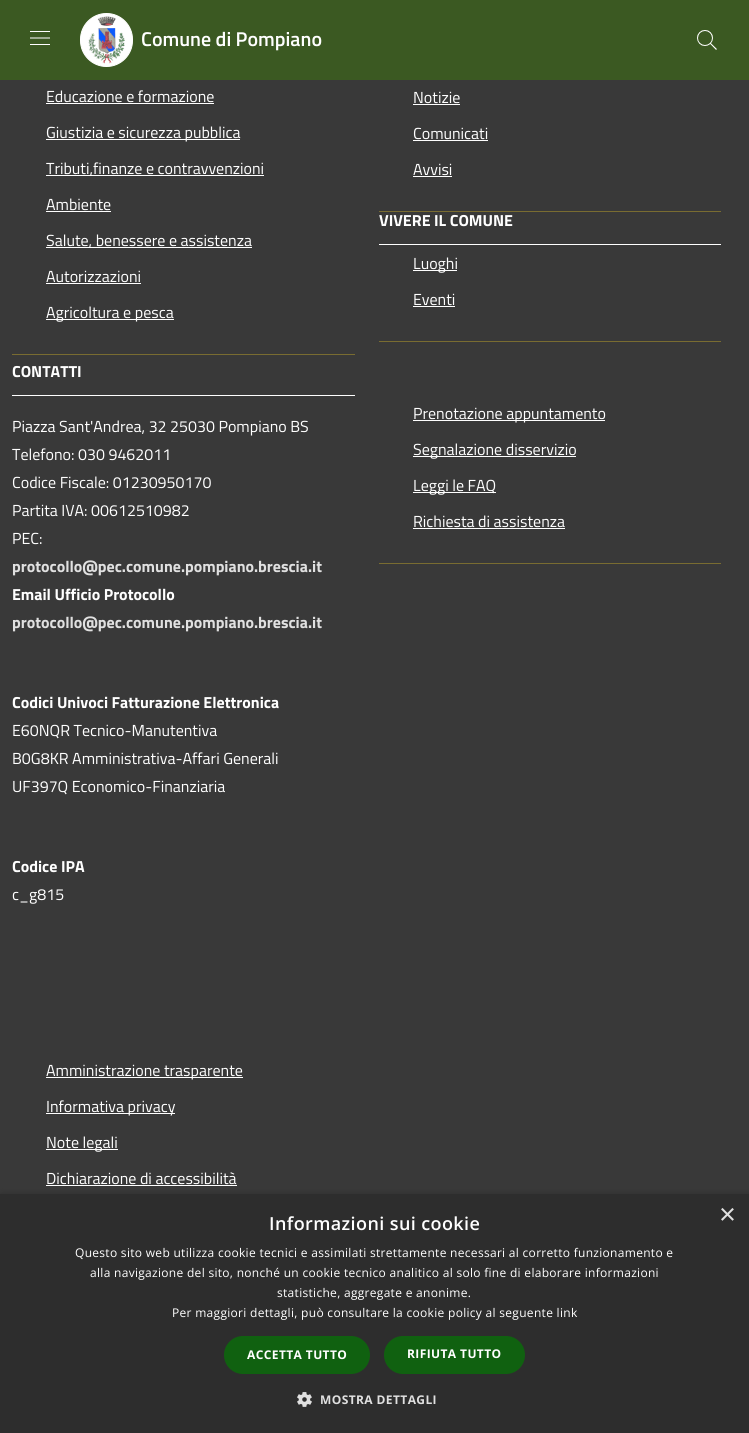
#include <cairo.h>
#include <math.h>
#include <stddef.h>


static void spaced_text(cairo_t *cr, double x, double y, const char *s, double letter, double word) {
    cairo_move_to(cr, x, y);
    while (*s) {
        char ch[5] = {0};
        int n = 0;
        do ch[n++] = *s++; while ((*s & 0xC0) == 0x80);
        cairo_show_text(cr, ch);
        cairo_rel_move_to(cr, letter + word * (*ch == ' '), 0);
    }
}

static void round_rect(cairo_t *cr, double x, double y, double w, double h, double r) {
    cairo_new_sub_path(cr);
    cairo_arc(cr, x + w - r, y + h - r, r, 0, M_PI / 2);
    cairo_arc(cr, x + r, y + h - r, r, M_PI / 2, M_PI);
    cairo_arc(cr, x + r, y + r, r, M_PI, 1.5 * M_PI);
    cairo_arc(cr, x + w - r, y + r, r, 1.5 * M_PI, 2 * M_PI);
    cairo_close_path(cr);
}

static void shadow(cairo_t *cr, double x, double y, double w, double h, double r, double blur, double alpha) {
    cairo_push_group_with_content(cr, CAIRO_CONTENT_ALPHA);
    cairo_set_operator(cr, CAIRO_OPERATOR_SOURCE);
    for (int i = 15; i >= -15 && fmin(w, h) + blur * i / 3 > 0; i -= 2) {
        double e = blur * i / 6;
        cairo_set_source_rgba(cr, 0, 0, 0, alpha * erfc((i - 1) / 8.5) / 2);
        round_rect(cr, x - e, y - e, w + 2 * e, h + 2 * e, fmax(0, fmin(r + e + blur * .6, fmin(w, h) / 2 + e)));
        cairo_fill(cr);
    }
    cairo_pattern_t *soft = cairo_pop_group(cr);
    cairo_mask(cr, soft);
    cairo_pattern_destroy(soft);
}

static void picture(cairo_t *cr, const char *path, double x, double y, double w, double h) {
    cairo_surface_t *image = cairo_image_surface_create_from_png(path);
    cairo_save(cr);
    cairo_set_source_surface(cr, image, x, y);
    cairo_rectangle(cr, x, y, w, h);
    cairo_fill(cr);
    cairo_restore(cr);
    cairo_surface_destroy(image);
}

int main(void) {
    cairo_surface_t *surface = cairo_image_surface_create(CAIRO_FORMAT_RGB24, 749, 1433);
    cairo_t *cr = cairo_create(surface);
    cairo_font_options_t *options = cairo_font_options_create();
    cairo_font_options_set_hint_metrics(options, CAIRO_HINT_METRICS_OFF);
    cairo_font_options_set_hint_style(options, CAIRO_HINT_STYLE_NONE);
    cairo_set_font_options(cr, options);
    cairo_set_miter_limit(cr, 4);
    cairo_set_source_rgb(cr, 0.224, 0.224, 0.224);
    cairo_paint(cr);
    cairo_set_source_rgb(cr, 0.231, 0.349, 0.133);
    cairo_rectangle(cr, 0, 0, 749, 80);
    cairo_fill(cr);
    picture(cr, "img1.png", 30, 31, 20, 14);
    cairo_set_source_rgb(cr, 1, 1, 1);
    round_rect(cr, 80.5, 13.5, 52, 53, 26);
    cairo_fill_preserve(cr);
    cairo_set_line_width(cr, 1);
    cairo_stroke(cr);
    picture(cr, "img2.png", 88, 16, 37, 48);
    cairo_select_font_face(cr, "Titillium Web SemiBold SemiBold", CAIRO_FONT_SLANT_NORMAL, CAIRO_FONT_WEIGHT_NORMAL);
    cairo_set_font_size(cr, 20);
    cairo_move_to(cr, 141, 46);
    cairo_show_text(cr, "Comune di Pompiano");
    picture(cr, "img3.png", 697, 30, 20, 20);
    cairo_set_source_rgb(cr, 0.475, 0.424, 0.192);
    cairo_rectangle(cr, 12, 354, 343, 1);
    cairo_fill(cr);
    cairo_select_font_face(cr, "Titillium Web", CAIRO_FONT_SLANT_NORMAL, CAIRO_FONT_WEIGHT_NORMAL);
    cairo_set_font_size(cr, 16);
    cairo_set_source_rgb(cr, 1, 1, 1);
    cairo_move_to(cr, 46, 102);
    cairo_show_text(cr, "Educazione e formazione");
    cairo_rectangle(cr, 46, 103, 168, 1);
    cairo_fill(cr);
    cairo_rectangle(cr, 46, 139, 194, 1);
    cairo_fill(cr);
    cairo_move_to(cr, 46, 138);
    cairo_show_text(cr, "Giustizia e sicurezza pubblica");
    cairo_rectangle(cr, 46, 175, 218, 1);
    cairo_fill(cr);
    cairo_move_to(cr, 46, 174);
    cairo_show_text(cr, "Tributi,finanze e contravvenzioni");
    cairo_move_to(cr, 46, 210);
    cairo_show_text(cr, "Ambiente");
    cairo_rectangle(cr, 46, 211, 65, 1);
    cairo_fill(cr);
    cairo_rectangle(cr, 46, 247, 206, 1);
    cairo_fill(cr);
    cairo_move_to(cr, 46, 246);
    cairo_show_text(cr, "Salute, benessere e assistenza");
    cairo_move_to(cr, 46, 282);
    cairo_show_text(cr, "Autorizzazioni");
    cairo_rectangle(cr, 46, 283, 95, 1);
    cairo_fill(cr);
    cairo_rectangle(cr, 46, 319, 128, 1);
    cairo_fill(cr);
    cairo_move_to(cr, 46, 318);
    cairo_show_text(cr, "Agricoltura e pesca");
    cairo_set_source_rgb(cr, 0.475, 0.424, 0.192);
    cairo_rectangle(cr, 379, 211, 342, 1);
    cairo_fill(cr);
    cairo_set_source_rgb(cr, 1, 1, 1);
    cairo_move_to(cr, 413, 103);
    cairo_show_text(cr, "Notizie");
    cairo_rectangle(cr, 413, 104, 47, 1);
    cairo_fill(cr);
    cairo_move_to(cr, 413, 139);
    cairo_show_text(cr, "Comunicati");
    cairo_rectangle(cr, 413, 140, 75, 1);
    cairo_fill(cr);
    cairo_move_to(cr, 413, 175);
    cairo_show_text(cr, "Avvisi");
    cairo_rectangle(cr, 413, 176, 39, 1);
    cairo_fill(cr);
    cairo_rectangle(cr, 379, 244, 342, 1);
    cairo_fill(cr);
    cairo_select_font_face(cr, "Titillium Web", CAIRO_FONT_SLANT_NORMAL, CAIRO_FONT_WEIGHT_BOLD);
    cairo_move_to(cr, 379, 226);
    cairo_show_text(cr, "VIVERE IL COMUNE");
    cairo_set_source_rgb(cr, 0.475, 0.424, 0.192);
    cairo_rectangle(cr, 379, 341, 342, 1);
    cairo_fill(cr);
    cairo_set_source_rgb(cr, 1, 1, 1);
    cairo_rectangle(cr, 413, 270, 44, 1);
    cairo_fill(cr);
    cairo_select_font_face(cr, "Titillium Web", CAIRO_FONT_SLANT_NORMAL, CAIRO_FONT_WEIGHT_NORMAL);
    cairo_move_to(cr, 413, 269);
    cairo_show_text(cr, "Luoghi");
    cairo_move_to(cr, 413, 305);
    cairo_show_text(cr, "Eventi");
    cairo_rectangle(cr, 413, 306, 42, 1);
    cairo_fill(cr);
    cairo_rectangle(cr, 12, 395, 343, 1);
    cairo_fill(cr);
    cairo_select_font_face(cr, "Titillium Web", CAIRO_FONT_SLANT_NORMAL, CAIRO_FONT_WEIGHT_BOLD);
    cairo_move_to(cr, 12, 377);
    cairo_show_text(cr, "CONTATTI");
    cairo_select_font_face(cr, "Titillium Web", CAIRO_FONT_SLANT_NORMAL, CAIRO_FONT_WEIGHT_NORMAL);
    cairo_move_to(cr, 12, 432);
    cairo_show_text(cr, "Piazza Sant'Andrea, 32 25030 Pompiano BS");
    cairo_move_to(cr, 12, 460);
    cairo_show_text(cr, "Telefono: 030 9462011");
    cairo_move_to(cr, 12, 488);
    cairo_show_text(cr, "Codice Fiscale: 01230950170");
    cairo_move_to(cr, 12, 516);
    cairo_show_text(cr, "Partita IVA: 00612510982");
    cairo_move_to(cr, 12, 544);
    cairo_show_text(cr, "PEC:");
    cairo_select_font_face(cr, "Titillium Web", CAIRO_FONT_SLANT_NORMAL, CAIRO_FONT_WEIGHT_BOLD);
    cairo_set_source_rgb(cr, 0.878, 0.878, 0.878);
    cairo_move_to(cr, 12, 572);
    cairo_show_text(cr, "protocollo@pec.comune.pompiano.brescia.it");
    cairo_set_source_rgb(cr, 1, 1, 1);
    cairo_move_to(cr, 12, 600);
    cairo_show_text(cr, "Email Ufficio Protocollo");
    cairo_set_source_rgb(cr, 0.878, 0.878, 0.878);
    cairo_move_to(cr, 12, 628);
    cairo_show_text(cr, "protocollo@pec.comune.pompiano.brescia.it");
    cairo_set_source_rgb(cr, 1, 1, 1);
    cairo_move_to(cr, 12, 708);
    cairo_show_text(cr, "Codici Univoci Fatturazione Elettronica");
    cairo_select_font_face(cr, "Titillium Web", CAIRO_FONT_SLANT_NORMAL, CAIRO_FONT_WEIGHT_NORMAL);
    cairo_move_to(cr, 12, 736);
    cairo_show_text(cr, "E60NQR Tecnico-Manutentiva");
    cairo_move_to(cr, 12, 764);
    cairo_show_text(cr, "B0G8KR Amministrativa-Affari Generali");
    cairo_move_to(cr, 12, 792);
    cairo_show_text(cr, "UF397Q Economico-Finanziaria");
    cairo_select_font_face(cr, "Titillium Web", CAIRO_FONT_SLANT_NORMAL, CAIRO_FONT_WEIGHT_BOLD);
    cairo_move_to(cr, 12, 872);
    cairo_show_text(cr, "Codice IPA");
    cairo_select_font_face(cr, "Titillium Web", CAIRO_FONT_SLANT_NORMAL, CAIRO_FONT_WEIGHT_NORMAL);
    cairo_move_to(cr, 12, 900);
    cairo_show_text(cr, "c_g815");
    cairo_set_source_rgb(cr, 0.475, 0.424, 0.192);
    cairo_rectangle(cr, 379, 563, 342, 1);
    cairo_fill(cr);
    cairo_set_source_rgb(cr, 1, 1, 1);
    cairo_rectangle(cr, 413, 420, 192, 1);
    cairo_fill(cr);
    cairo_move_to(cr, 413, 419);
    cairo_show_text(cr, "Prenotazione appuntamento");
    cairo_rectangle(cr, 413, 456, 163, 1);
    cairo_fill(cr);
    cairo_move_to(cr, 413, 455);
    cairo_show_text(cr, "Segnalazione disservizio");
    cairo_rectangle(cr, 413, 492, 83, 1);
    cairo_fill(cr);
    cairo_move_to(cr, 413, 491);
    cairo_show_text(cr, "Leggi le FAQ");
    cairo_move_to(cr, 413, 527);
    cairo_show_text(cr, "Richiesta di assistenza");
    cairo_rectangle(cr, 413, 528, 152, 1);
    cairo_fill(cr);
    cairo_rectangle(cr, 46, 1077, 197, 1);
    cairo_fill(cr);
    cairo_move_to(cr, 46, 1076);
    cairo_show_text(cr, "Amministrazione trasparente");
    cairo_rectangle(cr, 46, 1113, 129, 1);
    cairo_fill(cr);
    cairo_move_to(cr, 46, 1112);
    cairo_show_text(cr, "Informativa privacy");
    cairo_rectangle(cr, 46, 1149, 72, 1);
    cairo_fill(cr);
    cairo_move_to(cr, 46, 1148);
    cairo_show_text(cr, "Note legali");
    cairo_move_to(cr, 46, 1184);
    cairo_show_text(cr, "Dichiarazione di accessibilità");
    cairo_rectangle(cr, 46, 1185, 191, 1);
    cairo_fill(cr);
    cairo_set_source_rgb(cr, 0, 0, 0);
    shadow(cr, 1, 1196, 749, 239, 0, 4, 0.35);
    cairo_set_source_rgb(cr, 0.176, 0.176, 0.176);
    cairo_rectangle(cr, 0, 1194, 749, 239);
    cairo_fill(cr);
    cairo_select_font_face(cr, "Liberation Sans", CAIRO_FONT_SLANT_NORMAL, CAIRO_FONT_WEIGHT_NORMAL);
    cairo_set_font_size(cr, 29);
    cairo_set_source_rgb(cr, 0.878, 0.878, 0.878);
    cairo_move_to(cr, 719, 1224);
    cairo_show_text(cr, "×");
    cairo_select_font_face(cr, "Open Sans SemiBold", CAIRO_FONT_SLANT_NORMAL, CAIRO_FONT_WEIGHT_NORMAL);
    cairo_set_font_size(cr, 18);
    cairo_set_source_rgb(cr, 1, 1, 1);
    spaced_text(cr, 269, 1230, "Informazioni sui cookie", 0.4, 0);
    cairo_select_font_face(cr, "Open Sans", CAIRO_FONT_SLANT_NORMAL, CAIRO_FONT_WEIGHT_NORMAL);
    cairo_set_font_size(cr, 12);
    spaced_text(cr, 75, 1257, "Questo sito web utilizza cookie tecnici e assimilati strettamente necessari al corretto funzionamento e", 0.3, 0);
    spaced_text(cr, 90, 1277, "alla navigazione del sito, nonché un cookie tecnico analitico al solo fine di elaborare informazioni", 0.3, 0);
    spaced_text(cr, 277, 1297, "statistiche, aggregate e anonime.", 0.3, 0);
    spaced_text(cr, 172, 1317, "Per maggiori dettagli, può consultare la cookie policy al seguente link", 0.3, 0);
    cairo_set_source_rgb(cr, 0.063, 0.38, 0.063);
    round_rect(cr, 224, 1336, 146, 38, 19);
    cairo_fill(cr);
    cairo_select_font_face(cr, "Open Sans", CAIRO_FONT_SLANT_NORMAL, CAIRO_FONT_WEIGHT_BOLD);
    cairo_set_source_rgb(cr, 1, 1, 1);
    spaced_text(cr, 247, 1359, "ACCETTA TUTTO", 0.4, 0);
    cairo_set_source_rgb(cr, 0.063, 0.38, 0.063);
    round_rect(cr, 384, 1336, 141, 38, 19);
    cairo_fill(cr);
    cairo_set_source_rgb(cr, 1, 1, 1);
    spaced_text(cr, 407, 1358, "RIFIUTA TUTTO", 0.4, 0);
    picture(cr, "img4.png", 297, 1392, 15, 15);
    cairo_set_source_rgb(cr, 0.878, 0.878, 0.878);
    spaced_text(cr, 320, 1404, "MOSTRA DETTAGLI", 0.4, 0);
    cairo_surface_write_to_png(surface, "page.png");
    cairo_font_options_destroy(options);
    cairo_destroy(cr);
    cairo_surface_destroy(surface);
    return 0;
}
